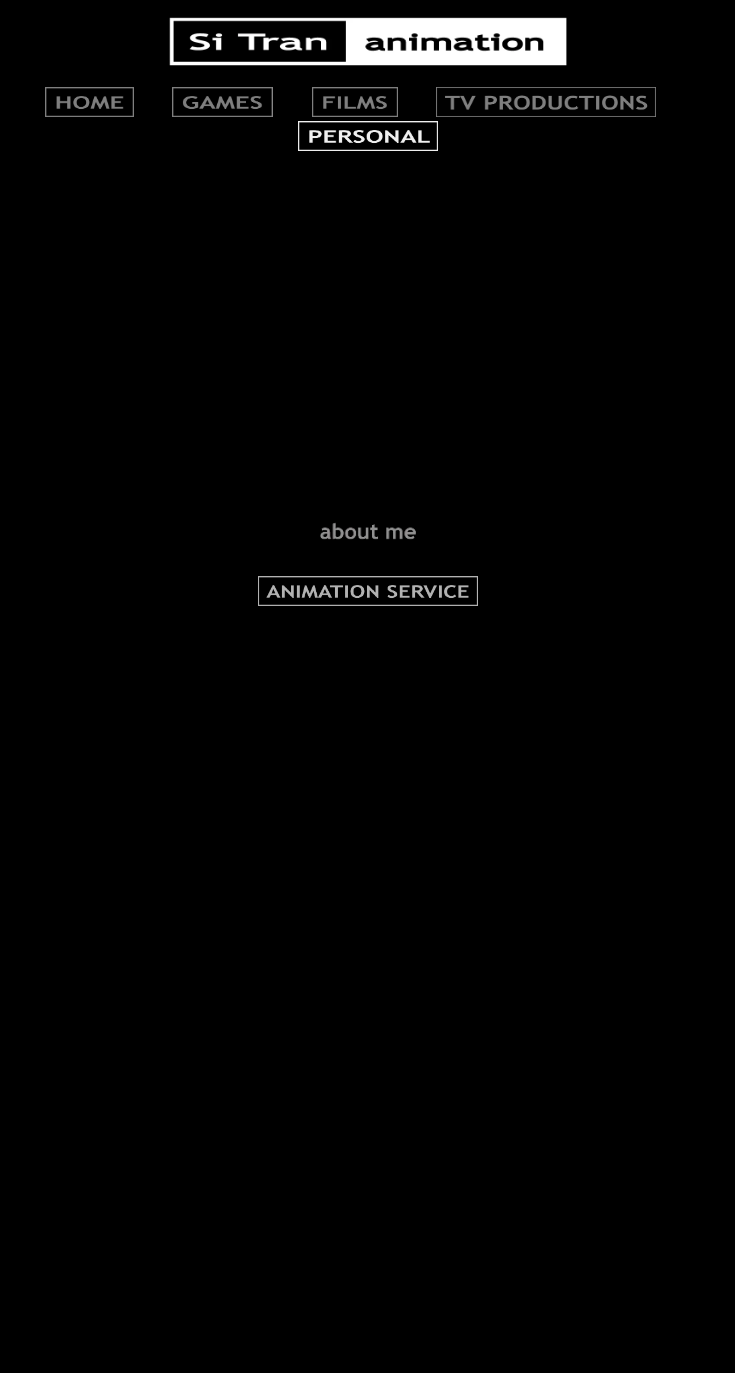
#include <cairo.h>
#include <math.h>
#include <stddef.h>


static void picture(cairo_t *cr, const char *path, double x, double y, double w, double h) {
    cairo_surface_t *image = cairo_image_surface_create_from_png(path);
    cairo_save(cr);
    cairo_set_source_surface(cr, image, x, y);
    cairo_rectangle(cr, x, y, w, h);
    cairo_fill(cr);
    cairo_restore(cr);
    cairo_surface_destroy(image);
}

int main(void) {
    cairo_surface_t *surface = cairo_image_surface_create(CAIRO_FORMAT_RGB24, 735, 1373);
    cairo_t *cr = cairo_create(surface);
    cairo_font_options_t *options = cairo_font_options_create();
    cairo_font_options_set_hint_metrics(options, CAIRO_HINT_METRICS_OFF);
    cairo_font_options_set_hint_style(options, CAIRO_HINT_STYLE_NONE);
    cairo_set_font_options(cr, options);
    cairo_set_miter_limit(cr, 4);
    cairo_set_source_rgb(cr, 0, 0, 0);
    cairo_paint(cr);
    picture(cr, "img1.png", 169, 17, 398, 49);
    picture(cr, "img2.png", 45, 87, 89, 30);
    picture(cr, "img3.png", 172, 87, 101, 30);
    picture(cr, "img4.png", 312, 87, 86, 30);
    picture(cr, "img5.png", 436, 87, 220, 30);
    picture(cr, "img6.png", 298, 121, 140, 30);
    picture(cr, "img7.png", 320, 522, 96, 18);
    picture(cr, "img8.png", 258, 576, 220, 30);
    cairo_surface_write_to_png(surface, "page.png");
    cairo_font_options_destroy(options);
    cairo_destroy(cr);
    cairo_surface_destroy(surface);
    return 0;
}
